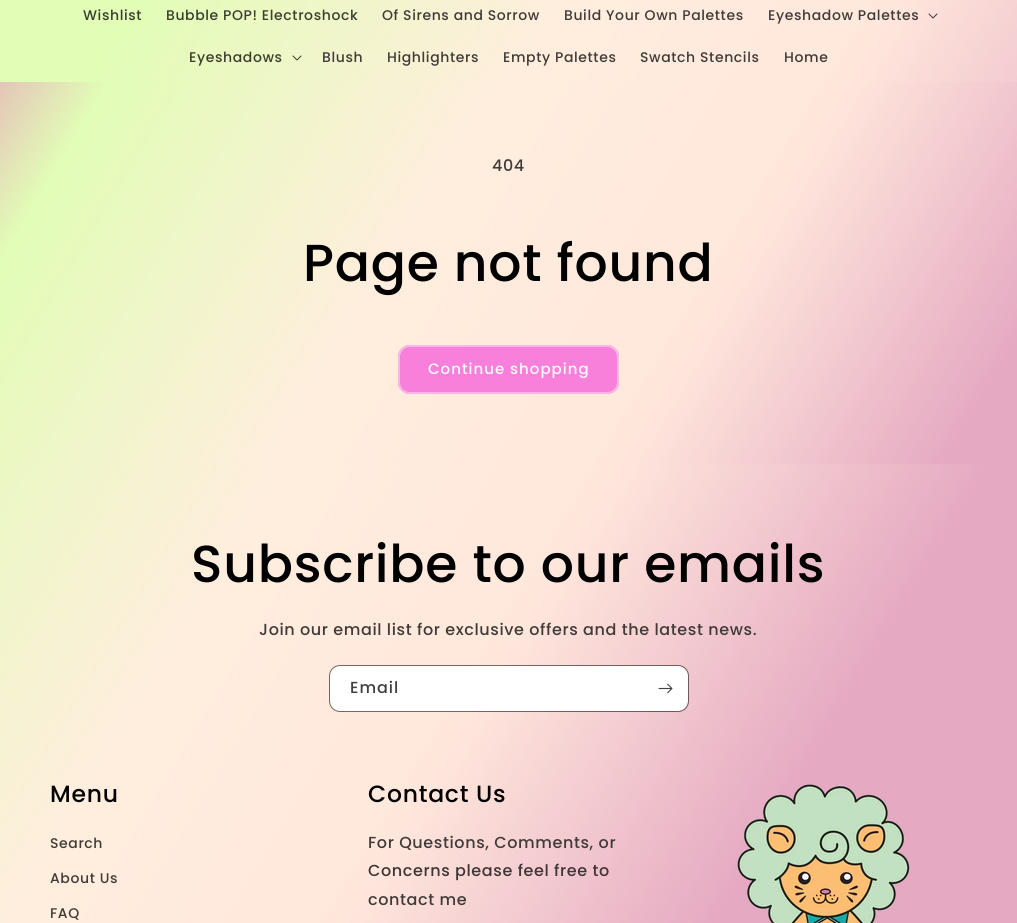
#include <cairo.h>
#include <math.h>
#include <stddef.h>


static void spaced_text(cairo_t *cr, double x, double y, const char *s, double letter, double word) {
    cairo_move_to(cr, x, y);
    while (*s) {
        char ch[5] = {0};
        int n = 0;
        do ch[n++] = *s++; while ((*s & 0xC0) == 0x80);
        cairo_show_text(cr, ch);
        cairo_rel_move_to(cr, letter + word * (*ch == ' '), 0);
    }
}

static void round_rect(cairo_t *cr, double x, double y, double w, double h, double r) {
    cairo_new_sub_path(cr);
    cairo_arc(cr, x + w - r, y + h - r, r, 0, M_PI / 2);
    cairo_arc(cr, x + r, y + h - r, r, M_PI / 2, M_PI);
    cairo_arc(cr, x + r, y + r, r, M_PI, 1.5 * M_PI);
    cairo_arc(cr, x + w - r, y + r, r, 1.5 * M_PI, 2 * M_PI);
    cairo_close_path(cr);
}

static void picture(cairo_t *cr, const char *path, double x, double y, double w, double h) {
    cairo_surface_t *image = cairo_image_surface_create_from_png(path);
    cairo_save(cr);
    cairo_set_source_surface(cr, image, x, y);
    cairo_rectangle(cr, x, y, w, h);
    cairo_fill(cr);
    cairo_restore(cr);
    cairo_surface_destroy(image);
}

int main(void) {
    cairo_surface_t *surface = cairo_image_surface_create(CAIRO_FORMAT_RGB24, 1017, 923);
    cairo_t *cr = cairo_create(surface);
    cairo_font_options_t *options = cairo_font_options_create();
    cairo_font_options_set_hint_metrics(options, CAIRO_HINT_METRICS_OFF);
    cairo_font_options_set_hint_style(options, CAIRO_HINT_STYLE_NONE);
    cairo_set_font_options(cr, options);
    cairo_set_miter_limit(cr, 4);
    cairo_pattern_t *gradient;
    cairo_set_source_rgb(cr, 1, 1, 1);
    cairo_paint(cr);
    gradient = cairo_pattern_create_linear(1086, 808, -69, 115);
    cairo_pattern_add_color_stop_rgba(gradient, 0.22, 0.898, 0.663, 0.761, 1);
    cairo_pattern_add_color_stop_rgba(gradient, 0.43, 1, 0.906, 0.863, 1);
    cairo_pattern_add_color_stop_rgba(gradient, 0.65, 1, 0.933, 0.871, 1);
    cairo_pattern_add_color_stop_rgba(gradient, 0.9, 0.886, 0.992, 0.714, 1);
    cairo_pattern_add_color_stop_rgba(gradient, 1, 0.898, 0.675, 0.729, 1);
    cairo_set_source(cr, gradient);
    cairo_pattern_destroy(gradient);
    cairo_rectangle(cr, 0, 82, 1017, 382);
    cairo_fill(cr);
    gradient = cairo_pattern_create_linear(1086, 808, -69, 115);
    cairo_pattern_add_color_stop_rgba(gradient, 0.19, 0.898, 0.663, 0.761, 1);
    cairo_pattern_add_color_stop_rgba(gradient, 0.43, 1, 0.906, 0.863, 1);
    cairo_pattern_add_color_stop_rgba(gradient, 0.64, 1, 0.933, 0.871, 1);
    cairo_pattern_add_color_stop_rgba(gradient, 0.91, 0.886, 0.992, 0.714, 1);
    cairo_set_source(cr, gradient);
    cairo_pattern_destroy(gradient);
    cairo_rectangle(cr, 0, 0, 1017, 82);
    cairo_fill(cr);
    cairo_select_font_face(cr, "Poppins Medium", CAIRO_FONT_SLANT_NORMAL, CAIRO_FONT_WEIGHT_NORMAL);
    cairo_set_font_size(cr, 14);
    cairo_set_source_rgb(cr, 0.224, 0.247, 0.18);
    spaced_text(cr, 83, 20, "Wishlist", 0.6, 0);
    spaced_text(cr, 166, 20, "Bubble POP! Electroshock", 0.6, 0);
    cairo_set_source_rgb(cr, 0.251, 0.231, 0.22);
    spaced_text(cr, 382, 20, "Of Sirens and Sorrow", 0.6, 0);
    spaced_text(cr, 564, 20, "Build Your Own Palettes", 0.6, 0);
    spaced_text(cr, 768, 20, "Eyeshadow Palettes", 0.6, 0);
    picture(cr, "img1.png", 928, 13, 10, 6);
    cairo_set_source_rgb(cr, 0.224, 0.247, 0.18);
    spaced_text(cr, 189, 62, "Eyeshadows", 0.6, 0);
    picture(cr, "img2.png", 292, 55, 10, 6);
    cairo_set_source_rgb(cr, 0.251, 0.231, 0.22);
    spaced_text(cr, 322, 62, "Blush", 0.6, 0);
    spaced_text(cr, 387, 62, "Highlighters", 0.6, 0);
    spaced_text(cr, 503, 62, "Empty Palettes", 0.6, 0);
    spaced_text(cr, 640, 62, "Swatch Stencils", 0.6, 0);
    spaced_text(cr, 784, 62, "Home", 0.6, 0);
    cairo_set_font_size(cr, 16);
    spaced_text(cr, 492, 171, "404", 0.6, 0);
    cairo_set_font_size(cr, 52);
    cairo_set_source_rgb(cr, 0, 0, 0);
    spaced_text(cr, 303, 281, "Page not found", 0.75, 0);
    cairo_set_source_rgb(cr, 0.969, 0.502, 0.855);
    round_rect(cr, 398, 345, 221, 49, 12);
    cairo_fill(cr);
    round_rect(cr, 399, 346, 219, 47, 11);
    cairo_stroke(cr);
    round_rect(cr, 399, 346, 219, 47, 11);
    cairo_set_source_rgba(cr, 0.98, 0.98, 0.98, 0.45);
    cairo_stroke(cr);
    cairo_set_font_size(cr, 15);
    cairo_set_source_rgb(cr, 0.98, 0.98, 0.98);
    spaced_text(cr, 428, 374, "Continue shopping", 1, 0);
    gradient = cairo_pattern_create_linear(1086, 808, -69, 115);
    cairo_pattern_add_color_stop_rgba(gradient, 0.19, 0.898, 0.663, 0.761, 1);
    cairo_pattern_add_color_stop_rgba(gradient, 0.43, 1, 0.906, 0.863, 1);
    cairo_pattern_add_color_stop_rgba(gradient, 0.64, 1, 0.933, 0.871, 1);
    cairo_pattern_add_color_stop_rgba(gradient, 0.91, 0.886, 0.992, 0.714, 1);
    cairo_set_source(cr, gradient);
    cairo_pattern_destroy(gradient);
    cairo_rectangle(cr, 0, 464, 1017, 300);
    cairo_fill(cr);
    cairo_set_font_size(cr, 52);
    cairo_set_source_rgb(cr, 0, 0, 0);
    spaced_text(cr, 191, 582, "Subscribe to our emails", 0.75, 0);
    cairo_set_font_size(cr, 16);
    cairo_set_source_rgb(cr, 0.251, 0.231, 0.22);
    spaced_text(cr, 259, 635, "Join our email list for exclusive offers and the latest news.", 0.6, 0);
    cairo_set_source_rgb(cr, 1, 1, 1);
    round_rect(cr, 330, 666, 358, 45, 10);
    cairo_fill(cr);
    round_rect(cr, 329.5, 665.5, 359, 46, 10.5);
    cairo_set_source_rgba(cr, 0, 0, 0, 0.55);
    cairo_set_line_width(cr, 1);
    cairo_stroke(cr);
    cairo_set_source_rgb(cr, 0.251, 0.251, 0.251);
    spaced_text(cr, 350, 693, "Email", 1, 0);
    picture(cr, "img3.png", 658, 683, 15, 11);
    gradient = cairo_pattern_create_linear(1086, 808, -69, 115);
    cairo_pattern_add_color_stop_rgba(gradient, 0.19, 0.898, 0.663, 0.761, 1);
    cairo_pattern_add_color_stop_rgba(gradient, 0.43, 1, 0.906, 0.863, 1);
    cairo_pattern_add_color_stop_rgba(gradient, 0.64, 1, 0.933, 0.871, 1);
    cairo_pattern_add_color_stop_rgba(gradient, 0.91, 0.886, 0.992, 0.714, 1);
    cairo_set_source(cr, gradient);
    cairo_pattern_destroy(gradient);
    cairo_rectangle(cr, 0, 764, 1017, 159);
    cairo_fill(cr);
    cairo_set_font_size(cr, 23.5);
    cairo_set_source_rgb(cr, 0, 0, 0);
    spaced_text(cr, 50, 802, "Menu", 0.75, 0);
    cairo_set_font_size(cr, 14);
    cairo_set_source_rgb(cr, 0.251, 0.231, 0.22);
    spaced_text(cr, 50, 848, "Search", 0.6, 0);
    spaced_text(cr, 50, 883, "About Us", 0.6, 0);
    spaced_text(cr, 50, 918, "FAQ", 0.6, 0);
    cairo_set_font_size(cr, 23.5);
    cairo_set_source_rgb(cr, 0, 0, 0);
    spaced_text(cr, 368, 802, "Contact Us", 0.75, 0);
    cairo_set_font_size(cr, 16);
    cairo_set_source_rgb(cr, 0.251, 0.231, 0.22);
    spaced_text(cr, 368, 848, "For Questions, Comments, or", 0.6, 0);
    cairo_set_source_rgb(cr, 0.243, 0.208, 0.208);
    spaced_text(cr, 368, 876, "Concerns please feel free to", 0.6, 0);
    cairo_set_source_rgb(cr, 0.251, 0.231, 0.22);
    spaced_text(cr, 368, 905, "contact me", 0.6, 0);
    picture(cr, "img4.png", 737, 784, 173, 139);
    cairo_surface_write_to_png(surface, "page.png");
    cairo_font_options_destroy(options);
    cairo_destroy(cr);
    cairo_surface_destroy(surface);
    return 0;
}
